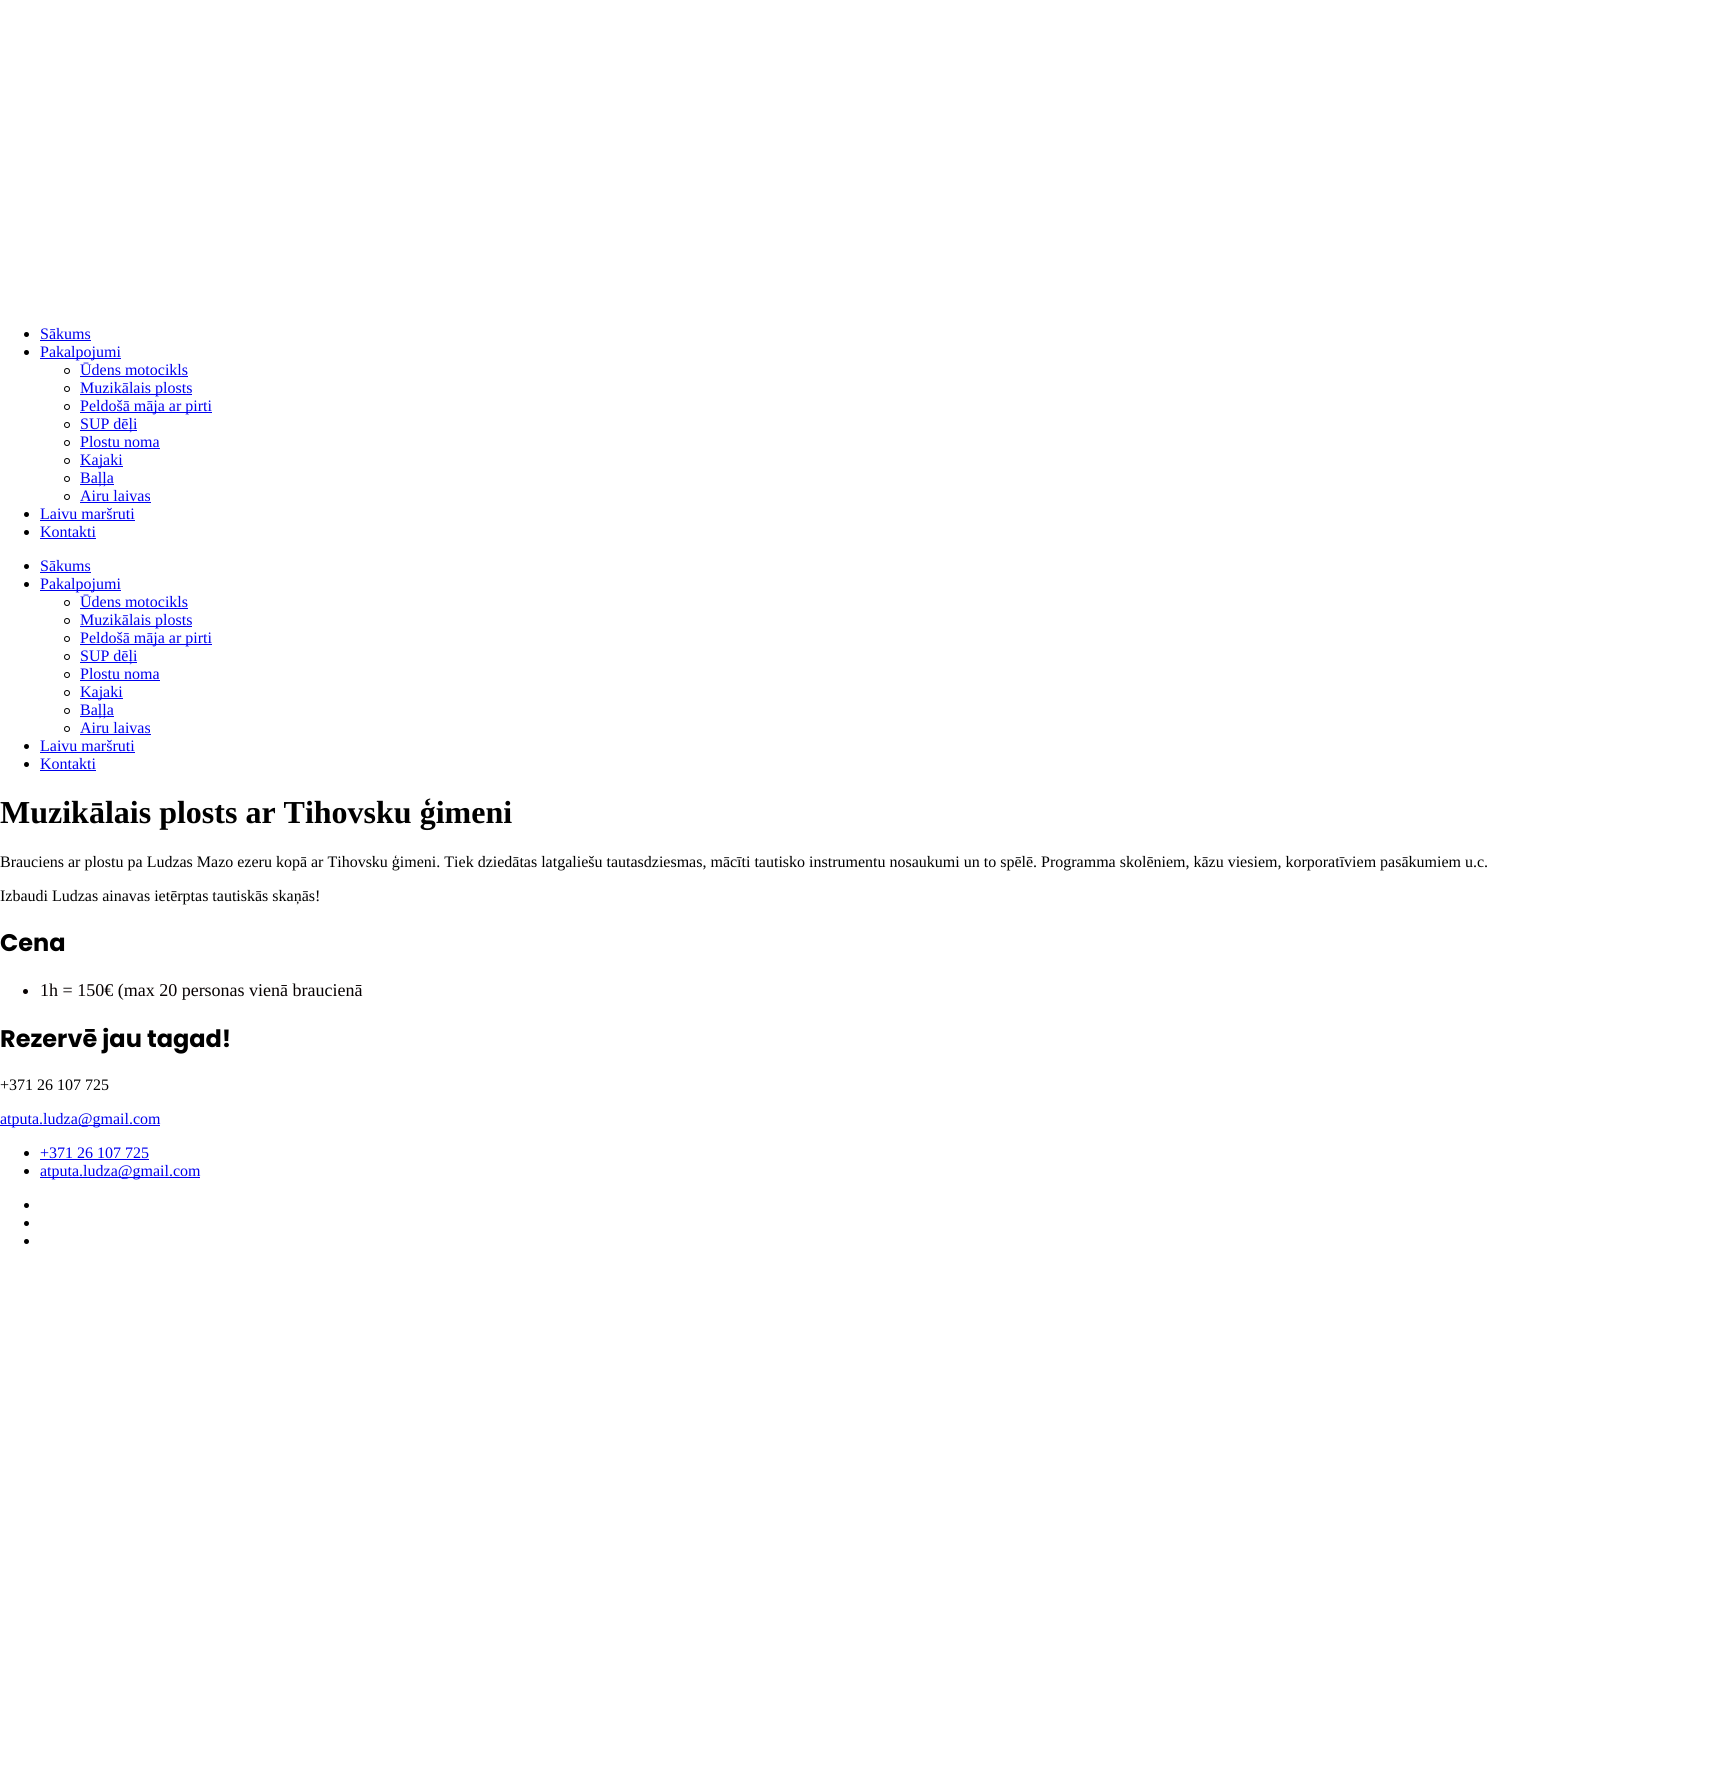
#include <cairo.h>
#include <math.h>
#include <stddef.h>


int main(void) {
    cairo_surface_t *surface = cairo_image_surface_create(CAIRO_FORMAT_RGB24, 1715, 1772);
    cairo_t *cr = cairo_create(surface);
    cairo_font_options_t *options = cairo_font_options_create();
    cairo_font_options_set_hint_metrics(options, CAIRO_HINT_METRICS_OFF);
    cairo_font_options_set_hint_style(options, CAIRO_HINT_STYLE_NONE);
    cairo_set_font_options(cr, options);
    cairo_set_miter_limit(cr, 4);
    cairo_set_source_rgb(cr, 1, 1, 1);
    cairo_paint(cr);
    cairo_set_source_rgb(cr, 0, 0, 0);
    cairo_arc(cr, 26.5, 334.5, 2.5, 0, 2 * M_PI);
    cairo_fill(cr);
    cairo_select_font_face(cr, "Liberation Serif", CAIRO_FONT_SLANT_NORMAL, CAIRO_FONT_WEIGHT_NORMAL);
    cairo_set_font_size(cr, 16);
    cairo_set_source_rgb(cr, 0, 0, 0.933);
    cairo_move_to(cr, 40, 339);
    cairo_show_text(cr, "Sākums");
    cairo_rectangle(cr, 40, 340, 51, 1);
    cairo_fill(cr);
    cairo_set_source_rgb(cr, 0, 0, 0);
    cairo_arc(cr, 26.5, 352.5, 2.5, 0, 2 * M_PI);
    cairo_fill(cr);
    cairo_set_source_rgb(cr, 0, 0, 0.933);
    cairo_rectangle(cr, 40, 358, 81, 1);
    cairo_fill(cr);
    cairo_move_to(cr, 40, 357);
    cairo_show_text(cr, "Pakalpojumi");
    cairo_new_path(cr);
    cairo_arc(cr, 67, 371, 2.5, 0, 2 * M_PI);
    cairo_set_source_rgb(cr, 0, 0, 0);
    cairo_set_line_width(cr, 1);
    cairo_stroke(cr);
    cairo_set_source_rgb(cr, 0, 0, 0.933);
    cairo_move_to(cr, 80, 375);
    cairo_show_text(cr, "Ūdens motocikls");
    cairo_rectangle(cr, 80, 376, 108, 1);
    cairo_fill(cr);
    cairo_arc(cr, 67, 389, 2.5, 0, 2 * M_PI);
    cairo_set_source_rgb(cr, 0, 0, 0);
    cairo_stroke(cr);
    cairo_set_source_rgb(cr, 0, 0, 0.933);
    cairo_rectangle(cr, 80, 394, 112, 1);
    cairo_fill(cr);
    cairo_move_to(cr, 80, 393);
    cairo_show_text(cr, "Muzikālais plosts");
    cairo_new_path(cr);
    cairo_arc(cr, 67, 407, 2.5, 0, 2 * M_PI);
    cairo_set_source_rgb(cr, 0, 0, 0);
    cairo_stroke(cr);
    cairo_set_source_rgb(cr, 0, 0, 0.933);
    cairo_rectangle(cr, 80, 412, 132, 1);
    cairo_fill(cr);
    cairo_move_to(cr, 80, 411);
    cairo_show_text(cr, "Peldošā māja ar pirti");
    cairo_new_path(cr);
    cairo_arc(cr, 67, 425, 2.5, 0, 2 * M_PI);
    cairo_set_source_rgb(cr, 0, 0, 0);
    cairo_stroke(cr);
    cairo_set_source_rgb(cr, 0, 0, 0.933);
    cairo_rectangle(cr, 80, 430, 57, 1);
    cairo_fill(cr);
    cairo_move_to(cr, 80, 429);
    cairo_show_text(cr, "SUP dēļi");
    cairo_new_path(cr);
    cairo_arc(cr, 67, 443, 2.5, 0, 2 * M_PI);
    cairo_set_source_rgb(cr, 0, 0, 0);
    cairo_stroke(cr);
    cairo_set_source_rgb(cr, 0, 0, 0.933);
    cairo_move_to(cr, 80, 447);
    cairo_show_text(cr, "Plostu noma");
    cairo_rectangle(cr, 80, 448, 80, 1);
    cairo_fill(cr);
    cairo_arc(cr, 67, 461, 2.5, 0, 2 * M_PI);
    cairo_set_source_rgb(cr, 0, 0, 0);
    cairo_stroke(cr);
    cairo_set_source_rgb(cr, 0, 0, 0.933);
    cairo_rectangle(cr, 80, 466, 43, 1);
    cairo_fill(cr);
    cairo_move_to(cr, 80, 465);
    cairo_show_text(cr, "Kajaki");
    cairo_new_path(cr);
    cairo_arc(cr, 67, 479, 2.5, 0, 2 * M_PI);
    cairo_set_source_rgb(cr, 0, 0, 0);
    cairo_stroke(cr);
    cairo_set_source_rgb(cr, 0, 0, 0.933);
    cairo_rectangle(cr, 80, 484, 34, 1);
    cairo_fill(cr);
    cairo_move_to(cr, 80, 483);
    cairo_show_text(cr, "Baļļa");
    cairo_new_path(cr);
    cairo_arc(cr, 67, 497, 2.5, 0, 2 * M_PI);
    cairo_set_source_rgb(cr, 0, 0, 0);
    cairo_stroke(cr);
    cairo_set_source_rgb(cr, 0, 0, 0.933);
    cairo_move_to(cr, 80, 501);
    cairo_show_text(cr, "Airu laivas");
    cairo_rectangle(cr, 80, 502, 71, 1);
    cairo_fill(cr);
    cairo_set_source_rgb(cr, 0, 0, 0);
    cairo_arc(cr, 26.5, 514.5, 2.5, 0, 2 * M_PI);
    cairo_fill(cr);
    cairo_set_source_rgb(cr, 0, 0, 0.933);
    cairo_move_to(cr, 40, 519);
    cairo_show_text(cr, "Laivu maršruti");
    cairo_rectangle(cr, 40, 520, 95, 1);
    cairo_fill(cr);
    cairo_set_source_rgb(cr, 0, 0, 0);
    cairo_arc(cr, 26.5, 532.5, 2.5, 0, 2 * M_PI);
    cairo_fill(cr);
    cairo_set_source_rgb(cr, 0, 0, 0.933);
    cairo_move_to(cr, 40, 537);
    cairo_show_text(cr, "Kontakti");
    cairo_rectangle(cr, 40, 538, 56, 1);
    cairo_fill(cr);
    cairo_set_source_rgb(cr, 0, 0, 0);
    cairo_arc(cr, 26.5, 566.5, 2.5, 0, 2 * M_PI);
    cairo_fill(cr);
    cairo_set_source_rgb(cr, 0, 0, 0.933);
    cairo_move_to(cr, 40, 571);
    cairo_show_text(cr, "Sākums");
    cairo_rectangle(cr, 40, 572, 51, 1);
    cairo_fill(cr);
    cairo_set_source_rgb(cr, 0, 0, 0);
    cairo_arc(cr, 26.5, 584.5, 2.5, 0, 2 * M_PI);
    cairo_fill(cr);
    cairo_set_source_rgb(cr, 0, 0, 0.933);
    cairo_rectangle(cr, 40, 590, 81, 1);
    cairo_fill(cr);
    cairo_move_to(cr, 40, 589);
    cairo_show_text(cr, "Pakalpojumi");
    cairo_new_path(cr);
    cairo_arc(cr, 67, 603, 2.5, 0, 2 * M_PI);
    cairo_set_source_rgb(cr, 0, 0, 0);
    cairo_stroke(cr);
    cairo_set_source_rgb(cr, 0, 0, 0.933);
    cairo_move_to(cr, 80, 607);
    cairo_show_text(cr, "Ūdens motocikls");
    cairo_rectangle(cr, 80, 608, 108, 1);
    cairo_fill(cr);
    cairo_arc(cr, 67, 621, 2.5, 0, 2 * M_PI);
    cairo_set_source_rgb(cr, 0, 0, 0);
    cairo_stroke(cr);
    cairo_set_source_rgb(cr, 0, 0, 0.933);
    cairo_rectangle(cr, 80, 626, 112, 1);
    cairo_fill(cr);
    cairo_move_to(cr, 80, 625);
    cairo_show_text(cr, "Muzikālais plosts");
    cairo_new_path(cr);
    cairo_arc(cr, 67, 639, 2.5, 0, 2 * M_PI);
    cairo_set_source_rgb(cr, 0, 0, 0);
    cairo_stroke(cr);
    cairo_set_source_rgb(cr, 0, 0, 0.933);
    cairo_rectangle(cr, 80, 644, 132, 1);
    cairo_fill(cr);
    cairo_move_to(cr, 80, 643);
    cairo_show_text(cr, "Peldošā māja ar pirti");
    cairo_new_path(cr);
    cairo_arc(cr, 67, 657, 2.5, 0, 2 * M_PI);
    cairo_set_source_rgb(cr, 0, 0, 0);
    cairo_stroke(cr);
    cairo_set_source_rgb(cr, 0, 0, 0.933);
    cairo_rectangle(cr, 80, 662, 57, 1);
    cairo_fill(cr);
    cairo_move_to(cr, 80, 661);
    cairo_show_text(cr, "SUP dēļi");
    cairo_new_path(cr);
    cairo_arc(cr, 67, 675, 2.5, 0, 2 * M_PI);
    cairo_set_source_rgb(cr, 0, 0, 0);
    cairo_stroke(cr);
    cairo_set_source_rgb(cr, 0, 0, 0.933);
    cairo_move_to(cr, 80, 679);
    cairo_show_text(cr, "Plostu noma");
    cairo_rectangle(cr, 80, 680, 80, 1);
    cairo_fill(cr);
    cairo_arc(cr, 67, 693, 2.5, 0, 2 * M_PI);
    cairo_set_source_rgb(cr, 0, 0, 0);
    cairo_stroke(cr);
    cairo_set_source_rgb(cr, 0, 0, 0.933);
    cairo_rectangle(cr, 80, 698, 43, 1);
    cairo_fill(cr);
    cairo_move_to(cr, 80, 697);
    cairo_show_text(cr, "Kajaki");
    cairo_new_path(cr);
    cairo_arc(cr, 67, 711, 2.5, 0, 2 * M_PI);
    cairo_set_source_rgb(cr, 0, 0, 0);
    cairo_stroke(cr);
    cairo_set_source_rgb(cr, 0, 0, 0.933);
    cairo_rectangle(cr, 80, 716, 34, 1);
    cairo_fill(cr);
    cairo_move_to(cr, 80, 715);
    cairo_show_text(cr, "Baļļa");
    cairo_new_path(cr);
    cairo_arc(cr, 67, 729, 2.5, 0, 2 * M_PI);
    cairo_set_source_rgb(cr, 0, 0, 0);
    cairo_stroke(cr);
    cairo_set_source_rgb(cr, 0, 0, 0.933);
    cairo_move_to(cr, 80, 733);
    cairo_show_text(cr, "Airu laivas");
    cairo_rectangle(cr, 80, 734, 71, 1);
    cairo_fill(cr);
    cairo_set_source_rgb(cr, 0, 0, 0);
    cairo_arc(cr, 26.5, 746.5, 2.5, 0, 2 * M_PI);
    cairo_fill(cr);
    cairo_set_source_rgb(cr, 0, 0, 0.933);
    cairo_move_to(cr, 40, 751);
    cairo_show_text(cr, "Laivu maršruti");
    cairo_rectangle(cr, 40, 752, 95, 1);
    cairo_fill(cr);
    cairo_set_source_rgb(cr, 0, 0, 0);
    cairo_arc(cr, 26.5, 764.5, 2.5, 0, 2 * M_PI);
    cairo_fill(cr);
    cairo_set_source_rgb(cr, 0, 0, 0.933);
    cairo_move_to(cr, 40, 769);
    cairo_show_text(cr, "Kontakti");
    cairo_rectangle(cr, 40, 770, 56, 1);
    cairo_fill(cr);
    cairo_select_font_face(cr, "Liberation Serif", CAIRO_FONT_SLANT_NORMAL, CAIRO_FONT_WEIGHT_BOLD);
    cairo_set_font_size(cr, 32);
    cairo_set_source_rgb(cr, 0, 0, 0);
    cairo_move_to(cr, 0, 823);
    cairo_show_text(cr, "Muzikālais plosts ar Tihovsku ģimeni");
    cairo_select_font_face(cr, "Liberation Serif", CAIRO_FONT_SLANT_NORMAL, CAIRO_FONT_WEIGHT_NORMAL);
    cairo_set_font_size(cr, 16);
    cairo_move_to(cr, 0, 867);
    cairo_show_text(cr, "Brauciens ar plostu pa Ludzas Mazo ezeru kopā ar Tihovsku ģimeni. Tiek dziedātas latgaliešu tautasdziesmas, mācīti tautisko instrumentu nosaukumi un to spēlē. Programma skolēniem, kāzu viesiem, korporatīviem pasākumiem u.c.");
    cairo_move_to(cr, 0, 901);
    cairo_show_text(cr, "Izbaudi Ludzas ainavas ietērptas tautiskās skaņās!");
    cairo_select_font_face(cr, "Poppins", CAIRO_FONT_SLANT_NORMAL, CAIRO_FONT_WEIGHT_BOLD);
    cairo_set_font_size(cr, 24);
    cairo_move_to(cr, 0, 951);
    cairo_show_text(cr, "Cena");
    cairo_set_source_rgb(cr, 0.027, 0, 0);
    cairo_new_path(cr);
    cairo_arc(cr, 25.5, 991.5, 2.5, 0, 2 * M_PI);
    cairo_fill(cr);
    cairo_select_font_face(cr, "Liberation Serif", CAIRO_FONT_SLANT_NORMAL, CAIRO_FONT_WEIGHT_NORMAL);
    cairo_set_font_size(cr, 18);
    cairo_move_to(cr, 40, 996);
    cairo_show_text(cr, "1h = 150€ (max 20 personas vienā braucienā");
    cairo_select_font_face(cr, "Poppins", CAIRO_FONT_SLANT_NORMAL, CAIRO_FONT_WEIGHT_BOLD);
    cairo_set_font_size(cr, 24);
    cairo_set_source_rgb(cr, 0, 0, 0);
    cairo_move_to(cr, 0, 1047);
    cairo_show_text(cr, "Rezervē jau tagad!");
    cairo_select_font_face(cr, "Liberation Serif", CAIRO_FONT_SLANT_NORMAL, CAIRO_FONT_WEIGHT_NORMAL);
    cairo_set_font_size(cr, 16);
    cairo_move_to(cr, 0, 1090);
    cairo_show_text(cr, "+371 26 107 725");
    cairo_set_source_rgb(cr, 0, 0, 0.933);
    cairo_rectangle(cr, 0, 1125, 160, 1);
    cairo_fill(cr);
    cairo_move_to(cr, 0, 1124);
    cairo_show_text(cr, "atputa.ludza@gmail.com");
    cairo_set_source_rgb(cr, 0, 0, 0);
    cairo_new_path(cr);
    cairo_arc(cr, 26.5, 1153.5, 2.5, 0, 2 * M_PI);
    cairo_fill(cr);
    cairo_set_source_rgb(cr, 0, 0, 0.933);
    cairo_move_to(cr, 40, 1158);
    cairo_show_text(cr, "+371 26 107 725");
    cairo_rectangle(cr, 40, 1159, 109, 1);
    cairo_fill(cr);
    cairo_set_source_rgb(cr, 0, 0, 0);
    cairo_arc(cr, 26.5, 1171.5, 2.5, 0, 2 * M_PI);
    cairo_fill(cr);
    cairo_set_source_rgb(cr, 0, 0, 0.933);
    cairo_rectangle(cr, 40, 1177, 160, 1);
    cairo_fill(cr);
    cairo_move_to(cr, 40, 1176);
    cairo_show_text(cr, "atputa.ludza@gmail.com");
    cairo_set_source_rgb(cr, 0, 0, 0);
    cairo_new_path(cr);
    cairo_arc(cr, 26.5, 1205.5, 2.5, 0, 2 * M_PI);
    cairo_fill(cr);
    cairo_arc(cr, 26.5, 1223.5, 2.5, 0, 2 * M_PI);
    cairo_fill(cr);
    cairo_arc(cr, 26.5, 1241.5, 2.5, 0, 2 * M_PI);
    cairo_fill(cr);
    cairo_surface_write_to_png(surface, "page.png");
    cairo_font_options_destroy(options);
    cairo_destroy(cr);
    cairo_surface_destroy(surface);
    return 0;
}
